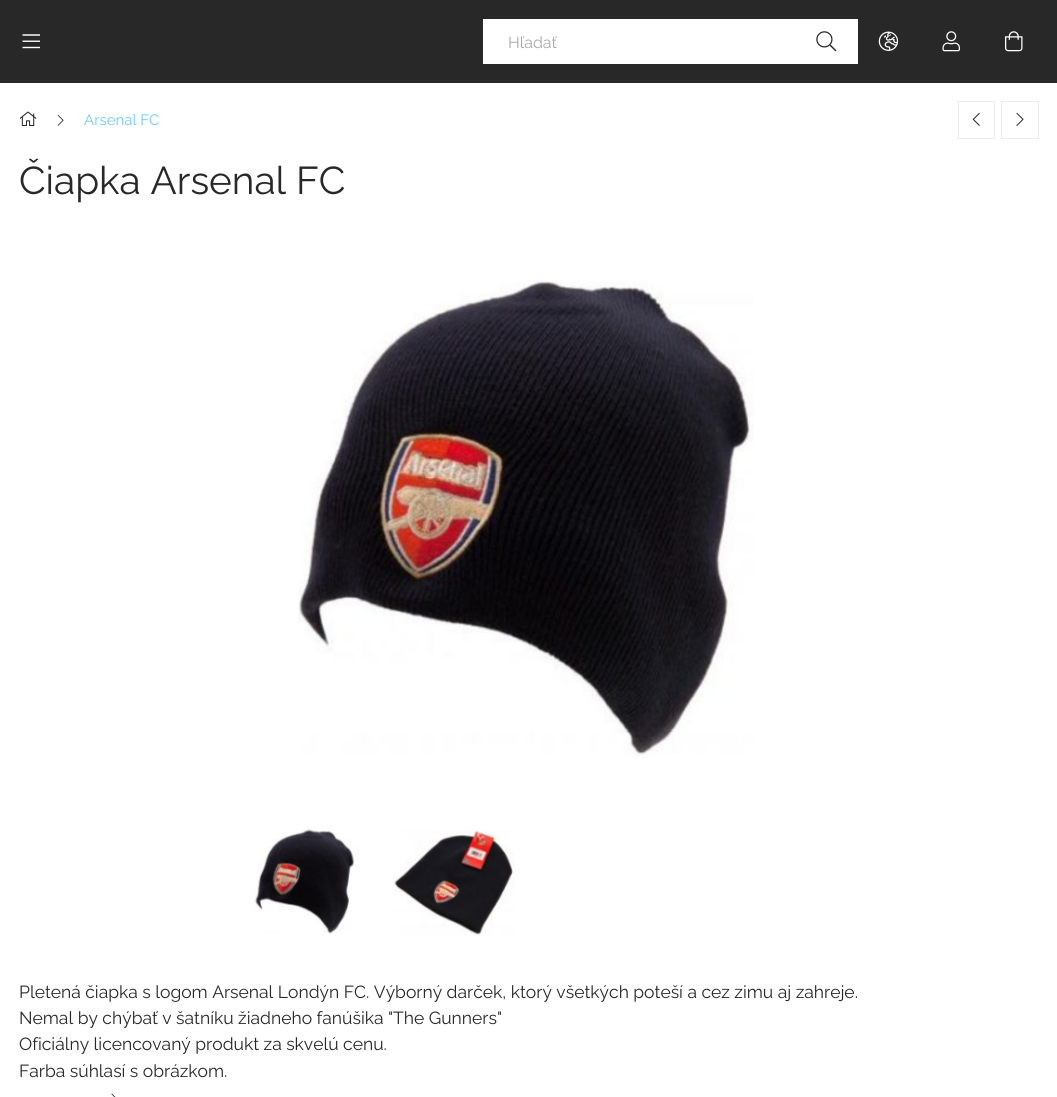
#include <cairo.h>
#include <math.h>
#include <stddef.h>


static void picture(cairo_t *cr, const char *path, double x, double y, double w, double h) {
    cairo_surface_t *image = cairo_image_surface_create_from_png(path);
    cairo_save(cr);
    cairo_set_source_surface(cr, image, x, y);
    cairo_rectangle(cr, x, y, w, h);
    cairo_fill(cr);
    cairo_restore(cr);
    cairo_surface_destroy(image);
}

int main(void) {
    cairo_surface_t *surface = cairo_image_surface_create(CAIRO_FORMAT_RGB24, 1057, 1097);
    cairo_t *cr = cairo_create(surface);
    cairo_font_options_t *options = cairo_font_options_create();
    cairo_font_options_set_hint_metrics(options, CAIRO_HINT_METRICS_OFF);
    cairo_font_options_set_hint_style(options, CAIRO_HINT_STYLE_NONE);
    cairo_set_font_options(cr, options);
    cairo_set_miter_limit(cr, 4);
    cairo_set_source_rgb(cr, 1, 1, 1);
    cairo_paint(cr);
    cairo_set_source_rgb(cr, 0.157, 0.157, 0.157);
    cairo_rectangle(cr, 0, 0, 1057, 83);
    cairo_fill(cr);
    picture(cr, "img1.png", 22, 34, 18, 15);
    cairo_set_source_rgb(cr, 1, 1, 1);
    cairo_rectangle(cr, 483, 19, 375, 45);
    cairo_fill(cr);
    cairo_select_font_face(cr, "Raleway", CAIRO_FONT_SLANT_NORMAL, CAIRO_FONT_WEIGHT_NORMAL);
    cairo_set_font_size(cr, 16);
    cairo_set_source_rgb(cr, 0.667, 0.667, 0.667);
    cairo_move_to(cr, 508, 48);
    cairo_show_text(cr, "Hľadať");
    picture(cr, "img2.png", 816, 31, 21, 21);
    picture(cr, "img3.png", 878, 31, 21, 20);
    picture(cr, "img4.png", 942, 31, 18, 21);
    picture(cr, "img5.png", 1005, 31, 18, 21);
    picture(cr, "img6.png", 19, 111, 18, 15);
    picture(cr, "img7.png", 57, 114, 7, 12);
    cairo_set_font_size(cr, 15);
    cairo_set_source_rgb(cr, 0.427, 0.788, 0.969);
    cairo_move_to(cr, 84, 125);
    cairo_show_text(cr, "Arsenal FC");
    cairo_rectangle(cr, 958.5, 101.5, 36, 37);
    cairo_set_source_rgb(cr, 0.918, 0.918, 0.918);
    cairo_set_line_width(cr, 1);
    cairo_stroke(cr);
    picture(cr, "img8.png", 972, 112, 8, 14);
    cairo_rectangle(cr, 1001.5, 101.5, 37, 37);
    cairo_stroke(cr);
    picture(cr, "img9.png", 1016, 112, 8, 14);
    cairo_set_font_size(cr, 38.75);
    cairo_set_source_rgb(cr, 0.157, 0.157, 0.157);
    cairo_move_to(cr, 19, 194);
    cairo_show_text(cr, "Čiapka Arsenal FC");
    picture(cr, "img10.png", 298, 280, 456, 478);
    picture(cr, "img11.png", 252, 826, 107, 109);
    picture(cr, "img12.png", 393, 830, 122, 106);
    cairo_set_font_size(cr, 17.5);
    cairo_move_to(cr, 19, 998);
    cairo_show_text(cr, "Pletená čiapka s logom Arsenal Londýn FC. Výborný darček, ktorý všetkých poteší a cez zimu aj zahreje.");
    cairo_move_to(cr, 19, 1024);
    cairo_show_text(cr, "Nemal by chýbať v šatníku žiadneho fanúšika \"The Gunners\"");
    cairo_move_to(cr, 19, 1050);
    cairo_show_text(cr, "Oficiálny licencovaný produkt za skvelú cenu.");
    cairo_move_to(cr, 19, 1077);
    cairo_show_text(cr, "Farba súhlasí s obrázkom.");
    picture(cr, "img13.png", 111, 1093, 5, 4);
    cairo_surface_write_to_png(surface, "page.png");
    cairo_font_options_destroy(options);
    cairo_destroy(cr);
    cairo_surface_destroy(surface);
    return 0;
}
